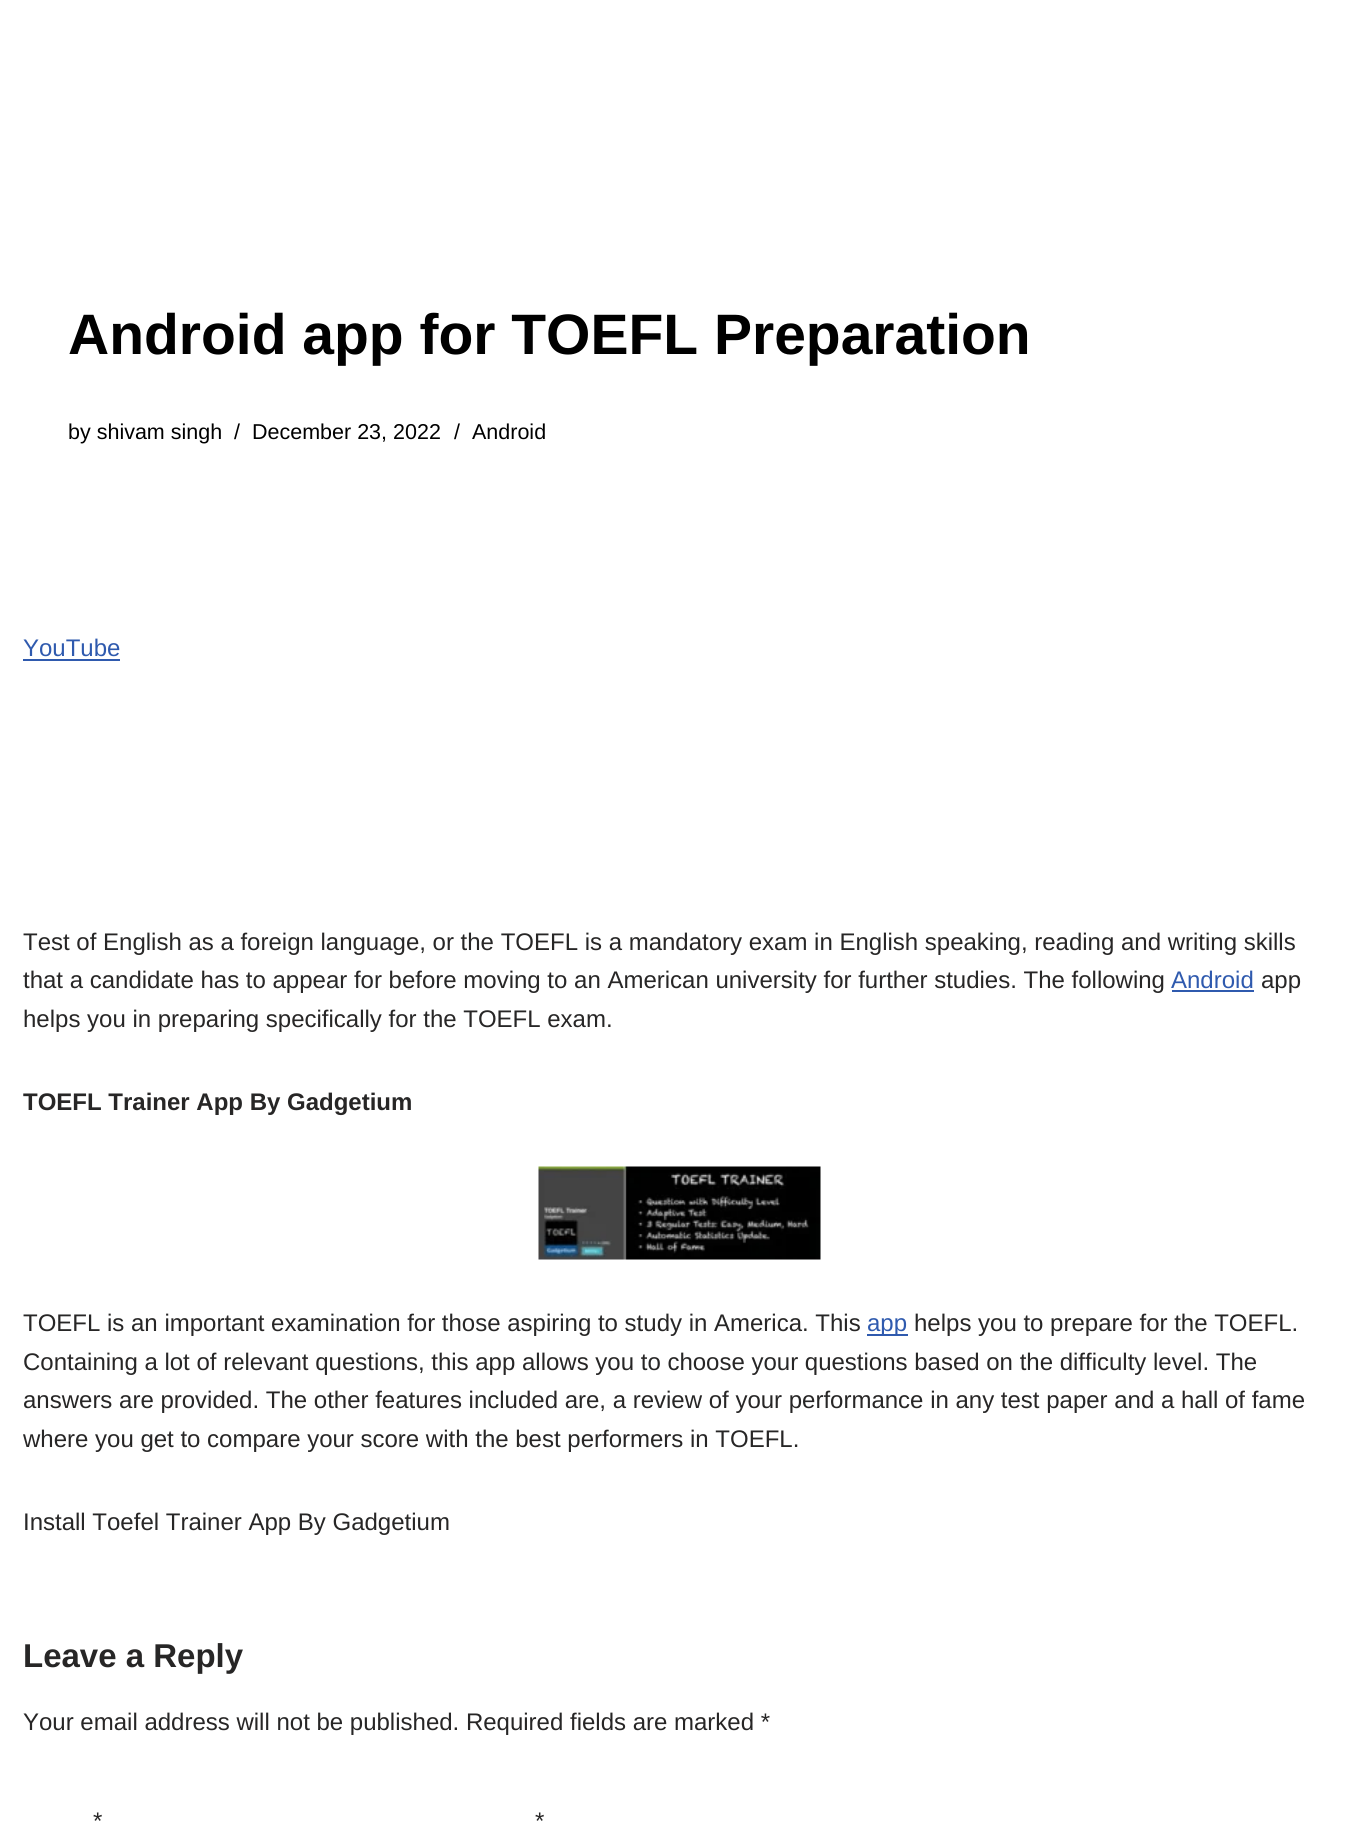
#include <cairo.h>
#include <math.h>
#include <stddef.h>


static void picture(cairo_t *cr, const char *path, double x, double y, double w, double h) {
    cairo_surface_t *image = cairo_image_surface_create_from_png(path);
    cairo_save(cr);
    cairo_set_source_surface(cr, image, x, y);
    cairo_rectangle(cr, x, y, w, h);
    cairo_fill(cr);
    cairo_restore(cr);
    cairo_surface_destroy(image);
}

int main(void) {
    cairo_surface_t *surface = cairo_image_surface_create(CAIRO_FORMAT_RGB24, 1359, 1823);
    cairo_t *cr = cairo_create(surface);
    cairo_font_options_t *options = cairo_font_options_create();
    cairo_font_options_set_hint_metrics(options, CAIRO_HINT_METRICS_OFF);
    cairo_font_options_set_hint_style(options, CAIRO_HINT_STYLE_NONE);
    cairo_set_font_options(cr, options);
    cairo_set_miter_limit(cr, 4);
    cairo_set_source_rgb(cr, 1, 1, 1);
    cairo_paint(cr);
    cairo_select_font_face(cr, "Liberation Sans", CAIRO_FONT_SLANT_NORMAL, CAIRO_FONT_WEIGHT_BOLD);
    cairo_set_font_size(cr, 57);
    cairo_set_source_rgb(cr, 0, 0, 0);
    cairo_move_to(cr, 68, 354);
    cairo_show_text(cr, "Android app for TOEFL Preparation");
    cairo_select_font_face(cr, "Liberation Sans", CAIRO_FONT_SLANT_NORMAL, CAIRO_FONT_WEIGHT_NORMAL);
    cairo_set_font_size(cr, 21.5);
    cairo_move_to(cr, 68, 439);
    cairo_show_text(cr, "by shivam singh");
    cairo_move_to(cr, 234, 439);
    cairo_show_text(cr, "/");
    cairo_move_to(cr, 252, 439);
    cairo_show_text(cr, "December 23, 2022");
    cairo_move_to(cr, 454, 439);
    cairo_show_text(cr, "/");
    cairo_move_to(cr, 472, 439);
    cairo_show_text(cr, "Android");
    cairo_set_font_size(cr, 24);
    cairo_set_source_rgb(cr, 0.184, 0.353, 0.682);
    cairo_move_to(cr, 23, 656);
    cairo_show_text(cr, "YouTube");
    cairo_rectangle(cr, 23, 659, 97, 2);
    cairo_fill(cr);
    cairo_set_source_rgb(cr, 0.153, 0.149, 0.149);
    cairo_move_to(cr, 23, 950);
    cairo_show_text(cr, "Test of English as a foreign language, or the TOEFL is a mandatory exam in English speaking, reading and writing skills");
    cairo_move_to(cr, 23, 988);
    cairo_show_text(cr, "that a candidate has to appear for before moving to an American university for further studies. The following");
    cairo_set_source_rgb(cr, 0.184, 0.353, 0.682);
    cairo_move_to(cr, 1171, 988);
    cairo_show_text(cr, "Android");
    cairo_rectangle(cr, 1172, 990, 82, 2);
    cairo_fill(cr);
    cairo_set_source_rgb(cr, 0.153, 0.149, 0.149);
    cairo_move_to(cr, 1261, 988);
    cairo_show_text(cr, "app");
    cairo_move_to(cr, 23, 1027);
    cairo_show_text(cr, "helps you in preparing specifically for the TOEFL exam.");
    cairo_select_font_face(cr, "Liberation Sans", CAIRO_FONT_SLANT_NORMAL, CAIRO_FONT_WEIGHT_BOLD);
    cairo_move_to(cr, 23, 1110);
    cairo_show_text(cr, "TOEFL Trainer App By Gadgetium");
    picture(cr, "img1.png", 538, 1166, 283, 94);
    cairo_select_font_face(cr, "Liberation Sans", CAIRO_FONT_SLANT_NORMAL, CAIRO_FONT_WEIGHT_NORMAL);
    cairo_move_to(cr, 23, 1331);
    cairo_show_text(cr, "TOEFL is an important examination for those aspiring to study in America. This");
    cairo_set_source_rgb(cr, 0.184, 0.353, 0.682);
    cairo_rectangle(cr, 867, 1334, 41, 2);
    cairo_fill(cr);
    cairo_move_to(cr, 867, 1331);
    cairo_show_text(cr, "app");
    cairo_set_source_rgb(cr, 0.153, 0.149, 0.149);
    cairo_move_to(cr, 914, 1331);
    cairo_show_text(cr, "helps you to prepare for the TOEFL.");
    cairo_move_to(cr, 23, 1370);
    cairo_show_text(cr, "Containing a lot of relevant questions, this app allows you to choose your questions based on the difficulty level. The");
    cairo_move_to(cr, 23, 1408);
    cairo_show_text(cr, "answers are provided. The other features included are, a review of your performance in any test paper and a hall of fame");
    cairo_move_to(cr, 23, 1447);
    cairo_show_text(cr, "where you get to compare your score with the best performers in TOEFL.");
    cairo_move_to(cr, 23, 1530);
    cairo_show_text(cr, "Install Toefel Trainer App By Gadgetium");
    cairo_select_font_face(cr, "Liberation Sans", CAIRO_FONT_SLANT_NORMAL, CAIRO_FONT_WEIGHT_BOLD);
    cairo_set_font_size(cr, 33);
    cairo_move_to(cr, 23, 1667);
    cairo_show_text(cr, "Leave a Reply");
    cairo_select_font_face(cr, "Liberation Sans", CAIRO_FONT_SLANT_NORMAL, CAIRO_FONT_WEIGHT_NORMAL);
    cairo_set_font_size(cr, 24);
    cairo_move_to(cr, 23, 1730);
    cairo_show_text(cr, "Your email address will not be published. Required fields are marked *");
    cairo_move_to(cr, 93, 1829);
    cairo_show_text(cr, "*");
    cairo_move_to(cr, 535, 1829);
    cairo_show_text(cr, "*");
    cairo_surface_write_to_png(surface, "page.png");
    cairo_font_options_destroy(options);
    cairo_destroy(cr);
    cairo_surface_destroy(surface);
    return 0;
}
